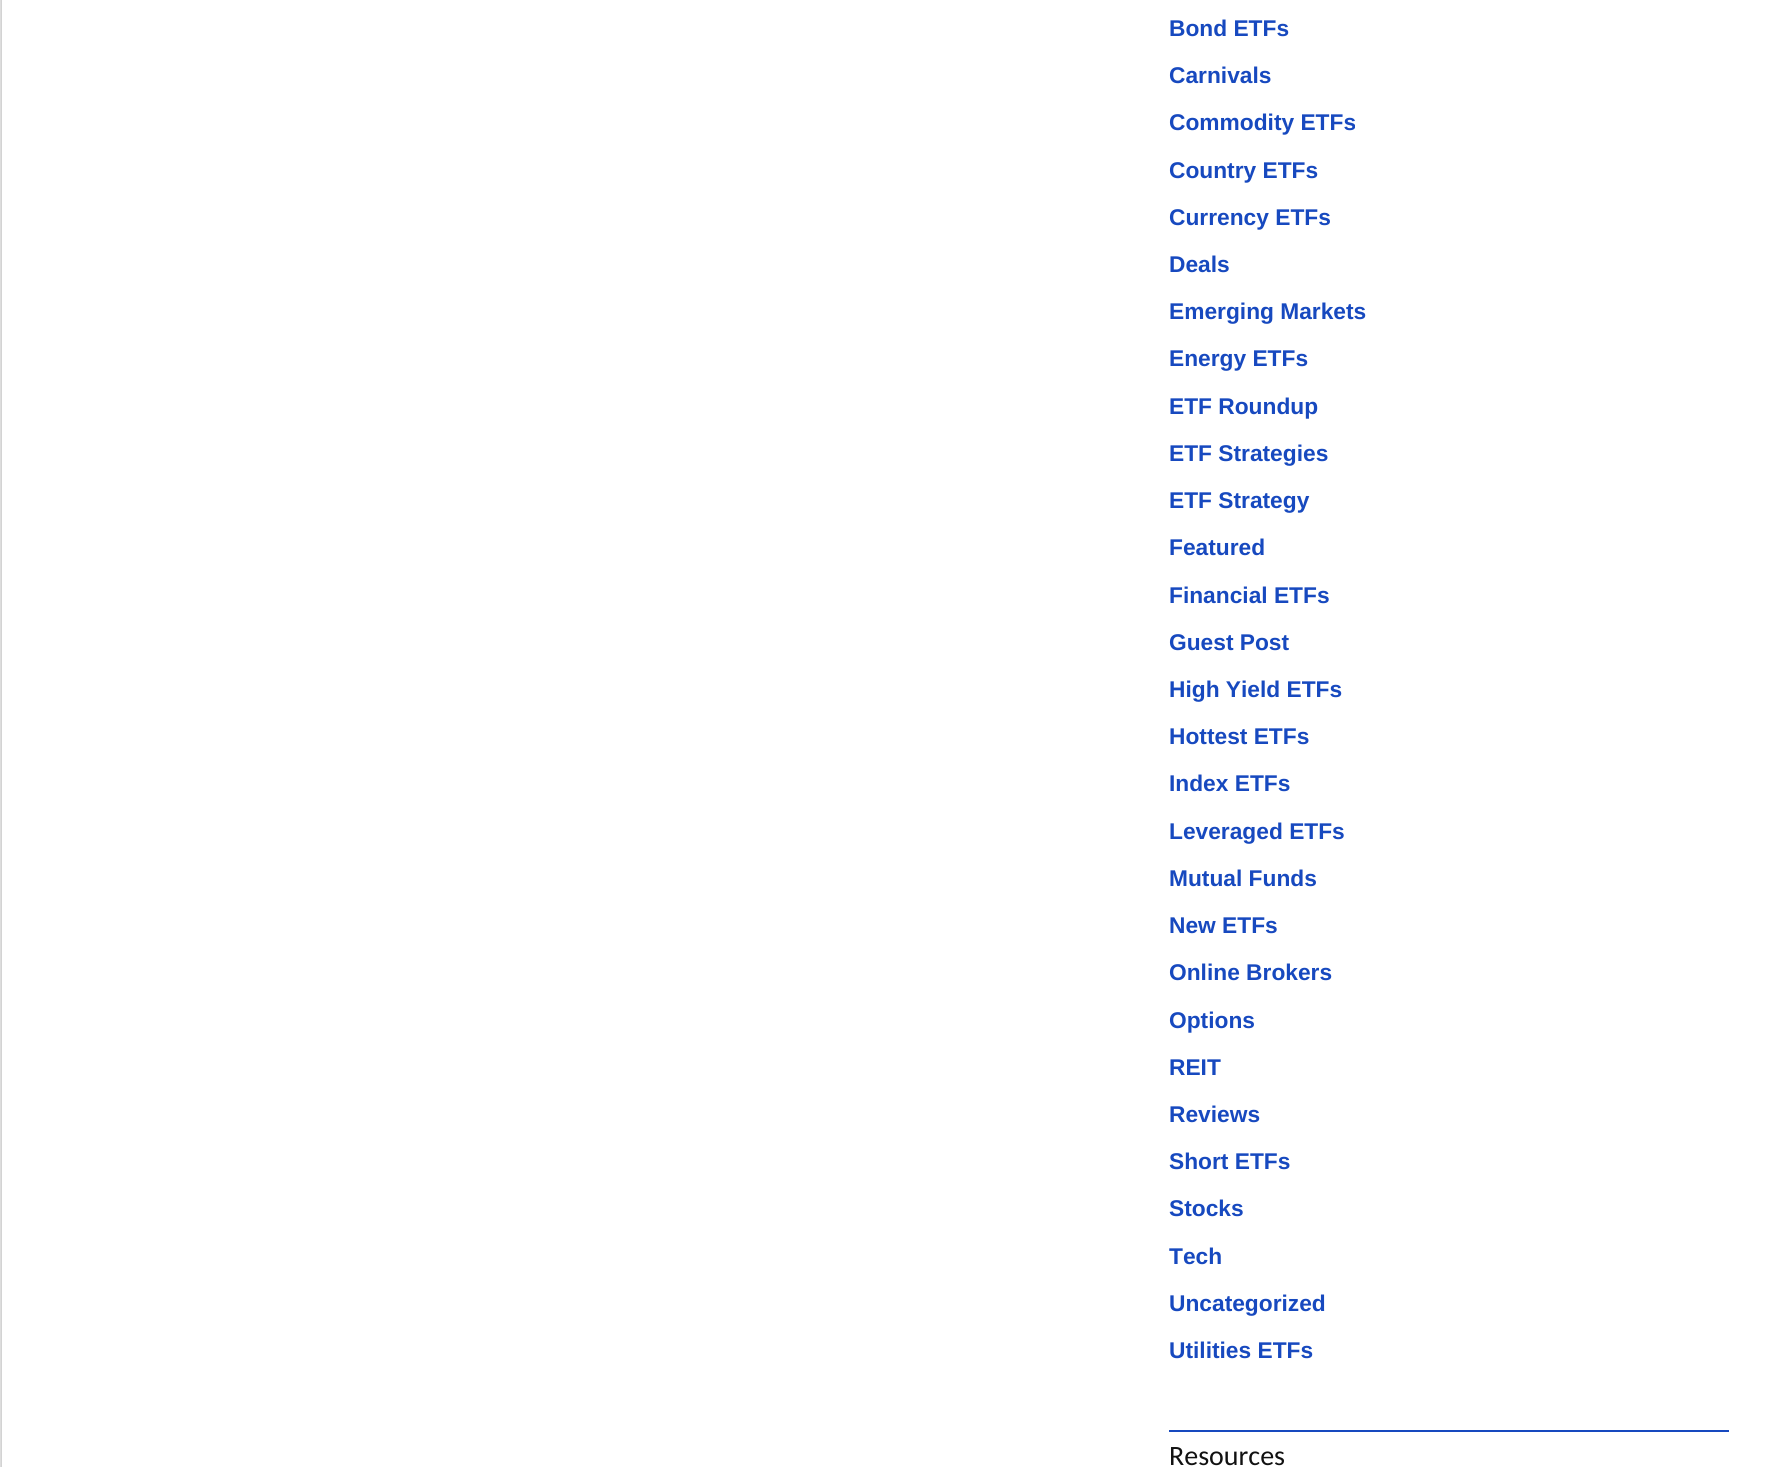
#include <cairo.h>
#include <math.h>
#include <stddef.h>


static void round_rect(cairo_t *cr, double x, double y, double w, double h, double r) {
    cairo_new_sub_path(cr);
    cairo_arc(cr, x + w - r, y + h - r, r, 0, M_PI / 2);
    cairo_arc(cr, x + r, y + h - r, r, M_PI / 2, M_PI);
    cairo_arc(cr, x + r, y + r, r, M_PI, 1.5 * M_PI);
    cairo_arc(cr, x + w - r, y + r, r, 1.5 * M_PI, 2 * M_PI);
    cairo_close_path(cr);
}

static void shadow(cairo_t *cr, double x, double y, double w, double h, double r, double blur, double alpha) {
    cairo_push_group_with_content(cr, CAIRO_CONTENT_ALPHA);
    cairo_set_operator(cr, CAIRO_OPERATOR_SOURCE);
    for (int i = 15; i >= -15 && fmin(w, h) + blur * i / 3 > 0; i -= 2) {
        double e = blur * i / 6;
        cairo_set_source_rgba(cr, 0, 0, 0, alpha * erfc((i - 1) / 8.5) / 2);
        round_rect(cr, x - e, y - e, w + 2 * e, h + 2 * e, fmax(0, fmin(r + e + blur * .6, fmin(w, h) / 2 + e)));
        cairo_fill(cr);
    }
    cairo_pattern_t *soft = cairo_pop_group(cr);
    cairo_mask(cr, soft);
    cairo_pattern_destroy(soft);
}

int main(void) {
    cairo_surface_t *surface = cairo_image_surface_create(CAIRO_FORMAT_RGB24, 1787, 1467);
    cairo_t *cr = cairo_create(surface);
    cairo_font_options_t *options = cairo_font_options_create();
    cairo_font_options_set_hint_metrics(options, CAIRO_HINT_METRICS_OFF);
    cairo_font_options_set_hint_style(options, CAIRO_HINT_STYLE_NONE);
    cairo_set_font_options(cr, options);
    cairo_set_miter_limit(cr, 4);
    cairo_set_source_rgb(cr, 0.953, 0.953, 0.953);
    cairo_paint(cr);
    cairo_set_source_rgb(cr, 0.659, 0.659, 0.659);
    shadow(cr, 2, -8, 1785, 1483, 0, 2.5, 1);
    cairo_set_source_rgb(cr, 1, 1, 1);
    cairo_rectangle(cr, 2, 0, 1785, 1467);
    cairo_fill(cr);
    cairo_select_font_face(cr, "Liberation Sans", CAIRO_FONT_SLANT_NORMAL, CAIRO_FONT_WEIGHT_BOLD);
    cairo_set_font_size(cr, 22.75);
    cairo_set_source_rgb(cr, 0.09, 0.286, 0.749);
    cairo_move_to(cr, 1169, 36);
    cairo_show_text(cr, "Bond ETFs");
    cairo_move_to(cr, 1169, 83);
    cairo_show_text(cr, "Carnivals");
    cairo_move_to(cr, 1169, 130);
    cairo_show_text(cr, "Commodity ETFs");
    cairo_move_to(cr, 1169, 178);
    cairo_show_text(cr, "Country ETFs");
    cairo_move_to(cr, 1169, 225);
    cairo_show_text(cr, "Currency ETFs");
    cairo_move_to(cr, 1169, 272);
    cairo_show_text(cr, "Deals");
    cairo_move_to(cr, 1169, 319);
    cairo_show_text(cr, "Emerging Markets");
    cairo_move_to(cr, 1169, 366);
    cairo_show_text(cr, "Energy ETFs");
    cairo_move_to(cr, 1169, 414);
    cairo_show_text(cr, "ETF Roundup");
    cairo_move_to(cr, 1169, 461);
    cairo_show_text(cr, "ETF Strategies");
    cairo_move_to(cr, 1169, 508);
    cairo_show_text(cr, "ETF Strategy");
    cairo_move_to(cr, 1169, 555);
    cairo_show_text(cr, "Featured");
    cairo_move_to(cr, 1169, 603);
    cairo_show_text(cr, "Financial ETFs");
    cairo_move_to(cr, 1169, 650);
    cairo_show_text(cr, "Guest Post");
    cairo_move_to(cr, 1169, 697);
    cairo_show_text(cr, "High Yield ETFs");
    cairo_move_to(cr, 1169, 744);
    cairo_show_text(cr, "Hottest ETFs");
    cairo_move_to(cr, 1169, 791);
    cairo_show_text(cr, "Index ETFs");
    cairo_move_to(cr, 1169, 839);
    cairo_show_text(cr, "Leveraged ETFs");
    cairo_move_to(cr, 1169, 886);
    cairo_show_text(cr, "Mutual Funds");
    cairo_move_to(cr, 1169, 933);
    cairo_show_text(cr, "New ETFs");
    cairo_move_to(cr, 1169, 980);
    cairo_show_text(cr, "Online Brokers");
    cairo_move_to(cr, 1169, 1028);
    cairo_show_text(cr, "Options");
    cairo_move_to(cr, 1169, 1075);
    cairo_show_text(cr, "REIT");
    cairo_move_to(cr, 1169, 1122);
    cairo_show_text(cr, "Reviews");
    cairo_move_to(cr, 1169, 1169);
    cairo_show_text(cr, "Short ETFs");
    cairo_move_to(cr, 1169, 1216);
    cairo_show_text(cr, "Stocks");
    cairo_move_to(cr, 1169, 1264);
    cairo_show_text(cr, "Tech");
    cairo_move_to(cr, 1169, 1311);
    cairo_show_text(cr, "Uncategorized");
    cairo_move_to(cr, 1169, 1358);
    cairo_show_text(cr, "Utilities ETFs");
    cairo_rectangle(cr, 1169, 1430, 560, 2);
    cairo_fill(cr);
    cairo_select_font_face(cr, "Carlito", CAIRO_FONT_SLANT_NORMAL, CAIRO_FONT_WEIGHT_NORMAL);
    cairo_set_font_size(cr, 28);
    cairo_set_source_rgb(cr, 0.067, 0.067, 0.067);
    cairo_move_to(cr, 1169, 1465);
    cairo_show_text(cr, "Resources");
    cairo_surface_write_to_png(surface, "page.png");
    cairo_font_options_destroy(options);
    cairo_destroy(cr);
    cairo_surface_destroy(surface);
    return 0;
}
